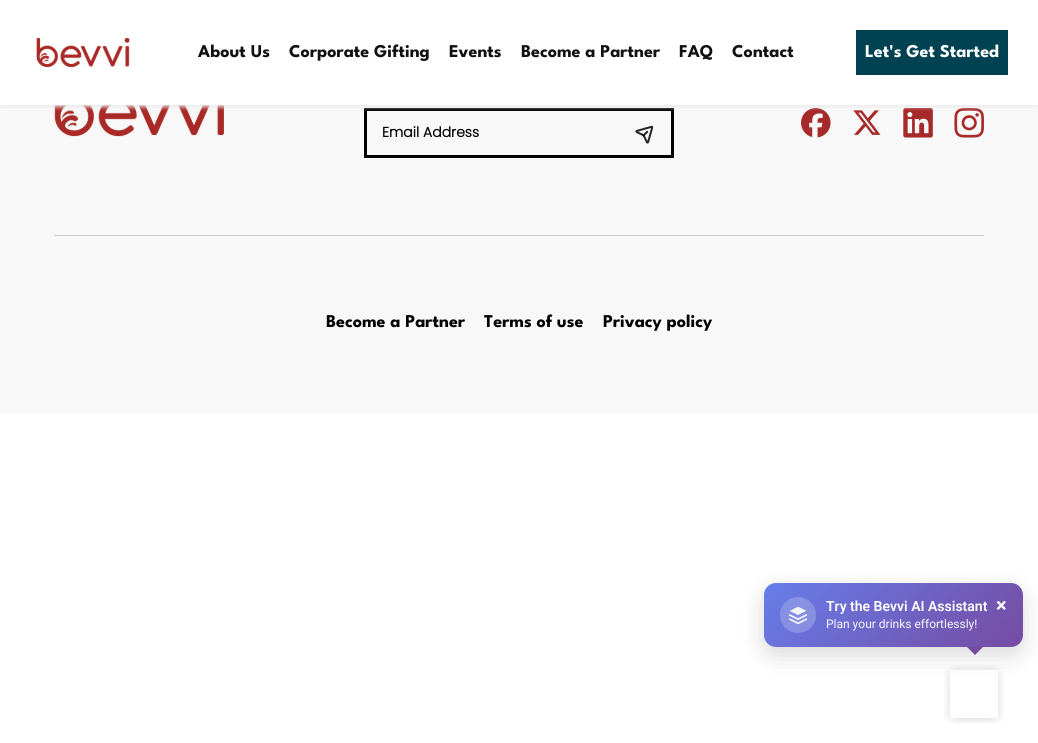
#include <cairo.h>
#include <math.h>
#include <stddef.h>


static void round_rect(cairo_t *cr, double x, double y, double w, double h, double r) {
    cairo_new_sub_path(cr);
    cairo_arc(cr, x + w - r, y + h - r, r, 0, M_PI / 2);
    cairo_arc(cr, x + r, y + h - r, r, M_PI / 2, M_PI);
    cairo_arc(cr, x + r, y + r, r, M_PI, 1.5 * M_PI);
    cairo_arc(cr, x + w - r, y + r, r, 1.5 * M_PI, 2 * M_PI);
    cairo_close_path(cr);
}

static void shadow(cairo_t *cr, double x, double y, double w, double h, double r, double blur, double alpha) {
    cairo_push_group_with_content(cr, CAIRO_CONTENT_ALPHA);
    cairo_set_operator(cr, CAIRO_OPERATOR_SOURCE);
    for (int i = 15; i >= -15 && fmin(w, h) + blur * i / 3 > 0; i -= 2) {
        double e = blur * i / 6;
        cairo_set_source_rgba(cr, 0, 0, 0, alpha * erfc((i - 1) / 8.5) / 2);
        round_rect(cr, x - e, y - e, w + 2 * e, h + 2 * e, fmax(0, fmin(r + e + blur * .6, fmin(w, h) / 2 + e)));
        cairo_fill(cr);
    }
    cairo_pattern_t *soft = cairo_pop_group(cr);
    cairo_mask(cr, soft);
    cairo_pattern_destroy(soft);
}

static void picture(cairo_t *cr, const char *path, double x, double y, double w, double h) {
    cairo_surface_t *image = cairo_image_surface_create_from_png(path);
    cairo_save(cr);
    cairo_set_source_surface(cr, image, x, y);
    cairo_rectangle(cr, x, y, w, h);
    cairo_fill(cr);
    cairo_restore(cr);
    cairo_surface_destroy(image);
}

int main(void) {
    cairo_surface_t *surface = cairo_image_surface_create(CAIRO_FORMAT_RGB24, 1038, 743);
    cairo_t *cr = cairo_create(surface);
    cairo_font_options_t *options = cairo_font_options_create();
    cairo_font_options_set_hint_metrics(options, CAIRO_HINT_METRICS_OFF);
    cairo_font_options_set_hint_style(options, CAIRO_HINT_STYLE_NONE);
    cairo_set_font_options(cr, options);
    cairo_set_miter_limit(cr, 4);
    cairo_pattern_t *gradient;
    cairo_set_source_rgb(cr, 1, 1, 1);
    cairo_paint(cr);
    cairo_set_source_rgb(cr, 0.969, 0.969, 0.969);
    cairo_rectangle(cr, 0, 105, 1038, 308);
    cairo_fill(cr);
    picture(cr, "img2.png", 54, 105, 170, 32);
    cairo_rectangle(cr, 365.5, 109.5, 307, 47);
    cairo_set_source_rgb(cr, 0, 0, 0);
    cairo_set_line_width(cr, 3);
    cairo_stroke(cr);
    picture(cr, "img4.png", 801, 108, 30, 30);
    picture(cr, "img5.png", 853, 110, 28, 25);
    picture(cr, "img6.png", 903, 108, 30, 30);
    picture(cr, "img7.png", 954, 108, 30, 30);
    cairo_save(cr);
    cairo_rectangle(cr, 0, 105, 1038, 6);
    cairo_clip(cr);
    cairo_set_source_rgb(cr, 0.925, 0.925, 0.925);
    shadow(cr, 0, 2, 1038, 105, 0, 2, 1);
    cairo_restore(cr);
    picture(cr, "img1.png", 36, 38, 94, 29);
    cairo_select_font_face(cr, "League Spartan", CAIRO_FONT_SLANT_NORMAL, CAIRO_FONT_WEIGHT_BOLD);
    cairo_set_font_size(cr, 18);
    cairo_set_source_rgb(cr, 0.067, 0.067, 0.067);
    cairo_move_to(cr, 198, 57);
    cairo_show_text(cr, "About Us");
    cairo_move_to(cr, 289, 57);
    cairo_show_text(cr, "Corporate Gifting");
    cairo_move_to(cr, 449, 57);
    cairo_show_text(cr, "Events");
    cairo_move_to(cr, 521, 57);
    cairo_show_text(cr, "Become a Partner");
    cairo_move_to(cr, 679, 57);
    cairo_show_text(cr, "FAQ");
    cairo_move_to(cr, 732, 57);
    cairo_show_text(cr, "Contact");
    cairo_set_source_rgb(cr, 0, 0.259, 0.318);
    cairo_rectangle(cr, 856, 30, 152, 45);
    cairo_fill(cr);
    cairo_set_source_rgb(cr, 1, 1, 1);
    cairo_move_to(cr, 865, 57);
    cairo_show_text(cr, "Let's Get Started");
    cairo_set_source_rgb(cr, 0.8, 0.8, 0.8);
    cairo_rectangle(cr, 54, 235, 930, 1);
    cairo_fill(cr);
    cairo_select_font_face(cr, "Poppins", CAIRO_FONT_SLANT_NORMAL, CAIRO_FONT_WEIGHT_BOLD);
    cairo_set_font_size(cr, 14);
    cairo_set_source_rgb(cr, 0, 0, 0);
    cairo_move_to(cr, 382, 137);
    cairo_show_text(cr, "Email Address");
    picture(cr, "img3.png", 635, 125, 19, 19);
    cairo_select_font_face(cr, "League Spartan", CAIRO_FONT_SLANT_NORMAL, CAIRO_FONT_WEIGHT_BOLD);
    cairo_set_font_size(cr, 18);
    cairo_move_to(cr, 326, 327);
    cairo_show_text(cr, "Become a Partner");
    cairo_move_to(cr, 484, 327);
    cairo_show_text(cr, "Terms of use");
    cairo_move_to(cr, 603, 327);
    cairo_show_text(cr, "Privacy policy");
    cairo_set_source_rgb(cr, 0, 0, 0);
    shadow(cr, 764, 591, 259, 64, 12, 12, 0.15);
    gradient = cairo_pattern_create_linear(813, 534, 974, 696);
    cairo_pattern_add_color_stop_rgba(gradient, 0, 0.4, 0.494, 0.918, 1);
    cairo_pattern_add_color_stop_rgba(gradient, 1, 0.463, 0.294, 0.635, 1);
    cairo_set_source(cr, gradient);
    cairo_pattern_destroy(gradient);
    round_rect(cr, 764, 583, 259, 64, 12);
    cairo_fill(cr);
    cairo_set_source_rgba(cr, 1, 1, 1, 0.2);
    cairo_arc(cr, 798, 615, 18, 0, 2 * M_PI);
    cairo_fill(cr);
    picture(cr, "img8.png", 788, 606, 20, 18);
    cairo_select_font_face(cr, "Roboto SemiBold", CAIRO_FONT_SLANT_NORMAL, CAIRO_FONT_WEIGHT_NORMAL);
    cairo_set_font_size(cr, 14);
    cairo_set_source_rgb(cr, 1, 1, 1);
    cairo_move_to(cr, 826, 611);
    cairo_show_text(cr, "Try the Bevvi AI Assistant");
    cairo_select_font_face(cr, "Roboto", CAIRO_FONT_SLANT_NORMAL, CAIRO_FONT_WEIGHT_NORMAL);
    cairo_set_font_size(cr, 12);
    cairo_set_source_rgb(cr, 0.973, 0.969, 0.988);
    cairo_move_to(cr, 826, 628);
    cairo_show_text(cr, "Plan your drinks effortlessly!");
    cairo_select_font_face(cr, "Roboto", CAIRO_FONT_SLANT_NORMAL, CAIRO_FONT_WEIGHT_BOLD);
    cairo_set_font_size(cr, 20);
    cairo_set_source_rgb(cr, 1, 1, 1);
    cairo_move_to(cr, 996, 612);
    cairo_show_text(cr, "×");
    cairo_set_source_rgb(cr, 0.463, 0.294, 0.635);
    cairo_new_path(cr);
    cairo_move_to(cr, 967, 647);
    cairo_line_to(cr, 983, 647);
    cairo_line_to(cr, 975, 655);
    cairo_close_path(cr);
    cairo_fill(cr);
    picture(cr, "img9.png", 944, 665, 60, 58);
    cairo_surface_write_to_png(surface, "page.png");
    cairo_font_options_destroy(options);
    cairo_destroy(cr);
    cairo_surface_destroy(surface);
    return 0;
}
